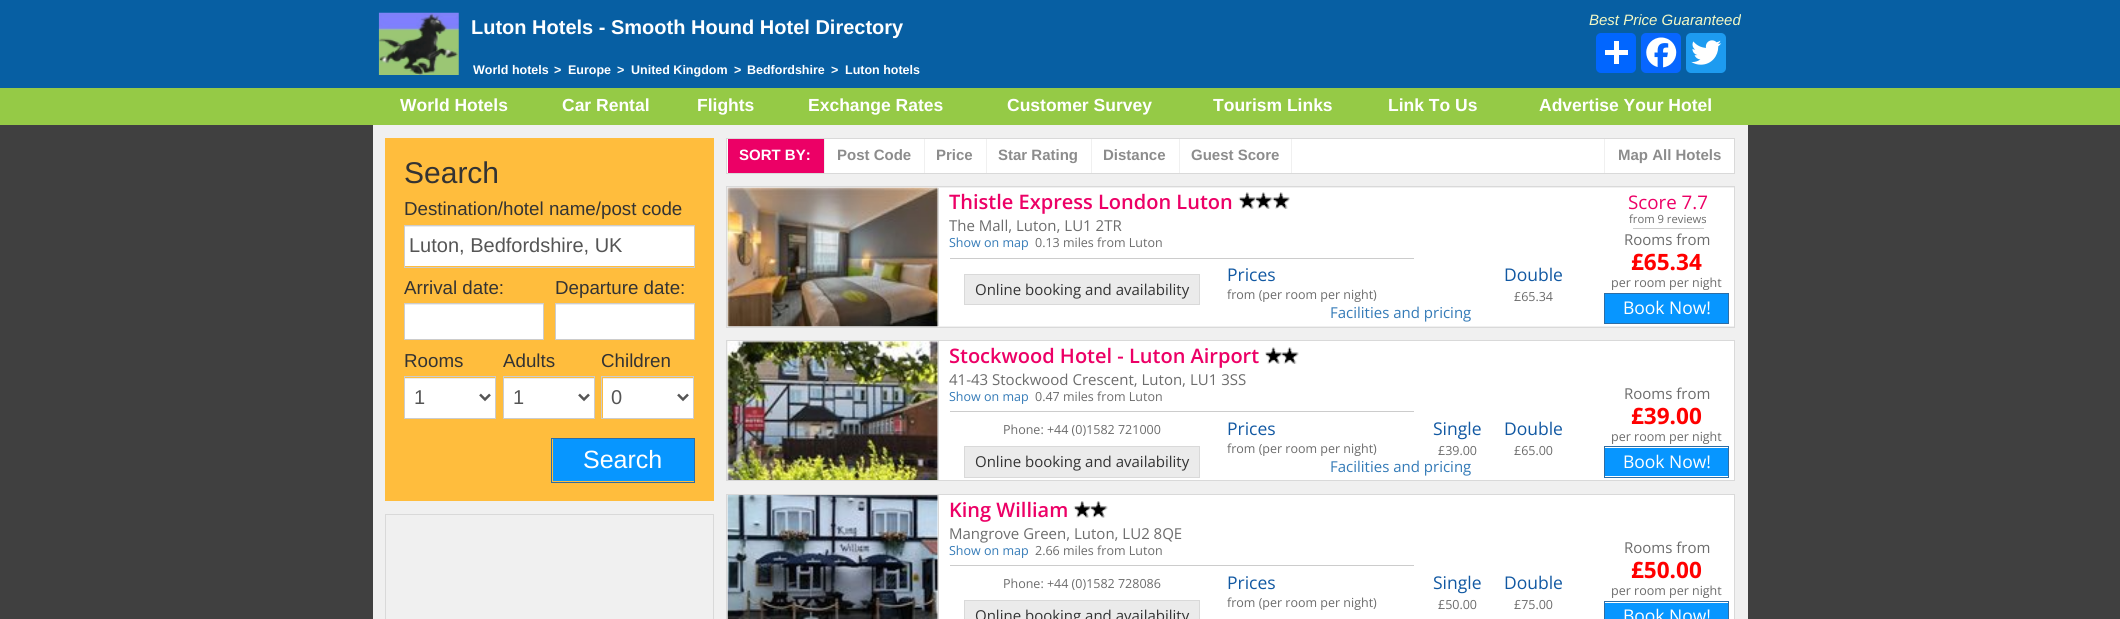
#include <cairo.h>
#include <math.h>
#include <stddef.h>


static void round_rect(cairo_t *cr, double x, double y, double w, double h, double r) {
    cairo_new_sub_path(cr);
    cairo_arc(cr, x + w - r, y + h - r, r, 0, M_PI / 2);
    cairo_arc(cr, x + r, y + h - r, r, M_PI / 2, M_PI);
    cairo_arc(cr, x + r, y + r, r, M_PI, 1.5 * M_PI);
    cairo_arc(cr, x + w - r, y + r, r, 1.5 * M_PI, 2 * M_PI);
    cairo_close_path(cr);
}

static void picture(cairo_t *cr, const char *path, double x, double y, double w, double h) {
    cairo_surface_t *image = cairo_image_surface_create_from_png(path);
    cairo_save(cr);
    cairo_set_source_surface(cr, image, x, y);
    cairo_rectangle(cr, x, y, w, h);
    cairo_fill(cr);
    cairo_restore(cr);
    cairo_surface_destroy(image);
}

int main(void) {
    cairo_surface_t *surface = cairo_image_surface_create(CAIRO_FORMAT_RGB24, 2120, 619);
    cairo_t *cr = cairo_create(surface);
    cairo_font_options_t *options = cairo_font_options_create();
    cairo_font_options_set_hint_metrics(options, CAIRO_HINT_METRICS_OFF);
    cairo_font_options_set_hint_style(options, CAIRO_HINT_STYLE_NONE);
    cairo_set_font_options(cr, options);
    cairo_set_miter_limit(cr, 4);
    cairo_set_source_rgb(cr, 0.251, 0.251, 0.251);
    cairo_paint(cr);
    cairo_set_source_rgb(cr, 0.031, 0.373, 0.639);
    cairo_rectangle(cr, 0, 0, 2120, 88);
    cairo_fill(cr);
    picture(cr, "img1.png", 378, 12, 81, 63);
    cairo_select_font_face(cr, "Liberation Sans", CAIRO_FONT_SLANT_NORMAL, CAIRO_FONT_WEIGHT_BOLD);
    cairo_set_font_size(cr, 20);
    cairo_set_source_rgb(cr, 1, 1, 1);
    cairo_move_to(cr, 471, 34);
    cairo_show_text(cr, "Luton Hotels - Smooth Hound Hotel Directory");
    cairo_save(cr);
    cairo_rectangle(cr, 379, 13, 1362, 62);
    cairo_clip(cr);
    cairo_select_font_face(cr, "Liberation Sans", CAIRO_FONT_SLANT_ITALIC, CAIRO_FONT_WEIGHT_NORMAL);
    cairo_set_font_size(cr, 15);
    cairo_set_source_rgb(cr, 0.957, 0.973, 0.773);
    cairo_move_to(cr, 1589, 25);
    cairo_show_text(cr, "Best Price Guaranteed");
    cairo_restore(cr);
    cairo_set_source_rgb(cr, 0.004, 0.4, 1);
    round_rect(cr, 1596, 33, 40, 40, 5);
    cairo_fill(cr);
    cairo_set_source_rgb(cr, 1, 1, 1);
    cairo_rectangle(cr, 1614, 41, 5, 23);
    cairo_fill(cr);
    cairo_rectangle(cr, 1605, 50, 23, 5);
    cairo_fill(cr);
    cairo_set_source_rgb(cr, 0.031, 0.4, 1);
    round_rect(cr, 1641, 33, 40, 40, 5);
    cairo_fill(cr);
    picture(cr, "img2.png", 1646, 37, 31, 31);
    cairo_set_source_rgb(cr, 0.114, 0.608, 0.941);
    round_rect(cr, 1686, 33, 40, 40, 5);
    cairo_fill(cr);
    picture(cr, "img3.png", 1691, 40, 31, 25);
    cairo_set_font_size(cr, 12.5);
    cairo_set_source_rgb(cr, 1, 1, 1);
    cairo_move_to(cr, 473, 74);
    cairo_show_text(cr, "World hotels");
    cairo_move_to(cr, 554, 74);
    cairo_show_text(cr, ">");
    cairo_move_to(cr, 568, 74);
    cairo_show_text(cr, "Europe");
    cairo_move_to(cr, 617, 74);
    cairo_show_text(cr, ">");
    cairo_move_to(cr, 631, 74);
    cairo_show_text(cr, "United Kingdom");
    cairo_move_to(cr, 734, 74);
    cairo_show_text(cr, ">");
    cairo_move_to(cr, 747, 74);
    cairo_show_text(cr, "Bedfordshire");
    cairo_move_to(cr, 831, 74);
    cairo_show_text(cr, ">");
    cairo_move_to(cr, 845, 74);
    cairo_show_text(cr, "Luton hotels");
    cairo_set_source_rgb(cr, 0.584, 0.792, 0.275);
    cairo_rectangle(cr, 0, 88, 2120, 37);
    cairo_fill(cr);
    cairo_set_font_size(cr, 17.5);
    cairo_set_source_rgb(cr, 1, 1, 1);
    cairo_move_to(cr, 400, 111);
    cairo_show_text(cr, "World Hotels");
    cairo_move_to(cr, 562, 111);
    cairo_show_text(cr, "Car Rental");
    cairo_move_to(cr, 697, 111);
    cairo_show_text(cr, "Flights");
    cairo_move_to(cr, 808, 111);
    cairo_show_text(cr, "Exchange Rates");
    cairo_move_to(cr, 1007, 111);
    cairo_show_text(cr, "Customer Survey");
    cairo_move_to(cr, 1213, 111);
    cairo_show_text(cr, "Tourism Links");
    cairo_move_to(cr, 1388, 111);
    cairo_show_text(cr, "Link To Us");
    cairo_move_to(cr, 1539, 111);
    cairo_show_text(cr, "Advertise Your Hotel");
    cairo_set_source_rgb(cr, 0.941, 0.941, 0.941);
    cairo_rectangle(cr, 373, 125, 1375, 494);
    cairo_fill(cr);
    cairo_set_source_rgb(cr, 1, 0.741, 0.239);
    cairo_rectangle(cr, 385, 138, 329, 363);
    cairo_fill(cr);
    cairo_select_font_face(cr, "Liberation Sans", CAIRO_FONT_SLANT_NORMAL, CAIRO_FONT_WEIGHT_NORMAL);
    cairo_set_font_size(cr, 30);
    cairo_set_source_rgb(cr, 0.2, 0.2, 0.2);
    cairo_move_to(cr, 404, 183);
    cairo_show_text(cr, "Search");
    cairo_set_font_size(cr, 18.75);
    cairo_move_to(cr, 404, 215);
    cairo_show_text(cr, "Destination/hotel name/post code");
    cairo_set_source_rgb(cr, 1, 1, 1);
    cairo_rectangle(cr, 405, 227, 289, 39);
    cairo_fill(cr);
    cairo_set_source_rgb(cr, 0.925, 0.925, 0.925);
    cairo_rectangle(cr, 405, 226, 289, 1);
    cairo_fill(cr);
    cairo_rectangle(cr, 404.5, 225.5, 290, 42);
    cairo_set_source_rgb(cr, 0.8, 0.8, 0.8);
    cairo_set_line_width(cr, 1);
    cairo_stroke(cr);
    cairo_set_font_size(cr, 20);
    cairo_set_source_rgb(cr, 0.333, 0.333, 0.333);
    cairo_move_to(cr, 409, 252);
    cairo_show_text(cr, "Luton, Bedfordshire, UK");
    cairo_set_font_size(cr, 18.75);
    cairo_set_source_rgb(cr, 0.2, 0.2, 0.2);
    cairo_move_to(cr, 404, 294);
    cairo_show_text(cr, "Arrival date:");
    cairo_set_source_rgb(cr, 1, 1, 1);
    cairo_rectangle(cr, 405, 305, 138, 34);
    cairo_fill(cr);
    cairo_set_source_rgb(cr, 0.925, 0.925, 0.925);
    cairo_rectangle(cr, 405, 304, 138, 1);
    cairo_fill(cr);
    cairo_rectangle(cr, 404.5, 303.5, 139, 36);
    cairo_set_source_rgb(cr, 0.8, 0.8, 0.8);
    cairo_stroke(cr);
    cairo_set_source_rgb(cr, 0.2, 0.2, 0.2);
    cairo_move_to(cr, 555, 294);
    cairo_show_text(cr, "Departure date:");
    cairo_set_source_rgb(cr, 1, 1, 1);
    cairo_rectangle(cr, 556, 305, 138, 34);
    cairo_fill(cr);
    cairo_set_source_rgb(cr, 0.925, 0.925, 0.925);
    cairo_rectangle(cr, 556, 304, 138, 1);
    cairo_fill(cr);
    cairo_rectangle(cr, 555.5, 303.5, 139, 36);
    cairo_set_source_rgb(cr, 0.8, 0.8, 0.8);
    cairo_stroke(cr);
    cairo_set_source_rgb(cr, 0.2, 0.2, 0.2);
    cairo_move_to(cr, 404, 367);
    cairo_show_text(cr, "Rooms");
    cairo_set_source_rgb(cr, 1, 1, 1);
    cairo_rectangle(cr, 405, 379, 90, 39);
    cairo_fill(cr);
    cairo_set_source_rgb(cr, 0.925, 0.925, 0.925);
    cairo_rectangle(cr, 405, 378, 90, 1);
    cairo_fill(cr);
    cairo_rectangle(cr, 404.5, 376.5, 91, 42);
    cairo_set_source_rgb(cr, 0.8, 0.8, 0.8);
    cairo_stroke(cr);
    cairo_new_path(cr);
    cairo_move_to(cr, 480, 394.5);
    cairo_line_to(cr, 485, 399.5);
    cairo_line_to(cr, 490, 394.5);
    cairo_set_source_rgb(cr, 0.333, 0.333, 0.333);
    cairo_set_line_width(cr, 2.5);
    cairo_stroke(cr);
    cairo_set_font_size(cr, 20);
    cairo_move_to(cr, 414, 404);
    cairo_show_text(cr, "1");
    cairo_set_font_size(cr, 18.75);
    cairo_set_source_rgb(cr, 0.2, 0.2, 0.2);
    cairo_move_to(cr, 503, 367);
    cairo_show_text(cr, "Adults");
    cairo_set_source_rgb(cr, 1, 1, 1);
    cairo_rectangle(cr, 504, 379, 90, 39);
    cairo_fill(cr);
    cairo_set_source_rgb(cr, 0.925, 0.925, 0.925);
    cairo_rectangle(cr, 504, 378, 90, 1);
    cairo_fill(cr);
    cairo_rectangle(cr, 503.5, 376.5, 91, 42);
    cairo_set_source_rgb(cr, 0.8, 0.8, 0.8);
    cairo_set_line_width(cr, 1);
    cairo_stroke(cr);
    cairo_new_path(cr);
    cairo_move_to(cr, 579, 394.5);
    cairo_line_to(cr, 584, 399.5);
    cairo_line_to(cr, 589, 394.5);
    cairo_set_source_rgb(cr, 0.333, 0.333, 0.333);
    cairo_set_line_width(cr, 2.5);
    cairo_stroke(cr);
    cairo_set_font_size(cr, 20);
    cairo_move_to(cr, 513, 404);
    cairo_show_text(cr, "1");
    cairo_set_font_size(cr, 18.75);
    cairo_set_source_rgb(cr, 0.2, 0.2, 0.2);
    cairo_move_to(cr, 601, 367);
    cairo_show_text(cr, "Children");
    cairo_set_source_rgb(cr, 1, 1, 1);
    cairo_rectangle(cr, 603, 379, 90, 39);
    cairo_fill(cr);
    cairo_set_source_rgb(cr, 0.925, 0.925, 0.925);
    cairo_rectangle(cr, 603, 378, 90, 1);
    cairo_fill(cr);
    cairo_rectangle(cr, 601.5, 376.5, 92, 42);
    cairo_set_source_rgb(cr, 0.8, 0.8, 0.8);
    cairo_set_line_width(cr, 1);
    cairo_stroke(cr);
    cairo_new_path(cr);
    cairo_move_to(cr, 678, 394.5);
    cairo_line_to(cr, 683, 399.5);
    cairo_line_to(cr, 688, 394.5);
    cairo_set_source_rgb(cr, 0.333, 0.333, 0.333);
    cairo_set_line_width(cr, 2.5);
    cairo_stroke(cr);
    cairo_set_font_size(cr, 20);
    cairo_move_to(cr, 611, 404);
    cairo_show_text(cr, "0");
    cairo_set_source_rgb(cr, 0.031, 0.588, 1);
    cairo_rectangle(cr, 553, 439, 141, 42);
    cairo_fill(cr);
    cairo_rectangle(cr, 551.5, 438.5, 143, 44);
    cairo_set_source_rgb(cr, 0.18, 0.427, 0.643);
    cairo_set_line_width(cr, 1);
    cairo_stroke(cr);
    cairo_set_font_size(cr, 25);
    cairo_set_source_rgb(cr, 1, 1, 1);
    cairo_move_to(cr, 583, 468);
    cairo_show_text(cr, "Search");
    cairo_rectangle(cr, 385.5, 514.5, 328, 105);
    cairo_set_source_rgb(cr, 0.851, 0.851, 0.851);
    cairo_stroke(cr);
    cairo_set_source_rgb(cr, 1, 1, 1);
    cairo_rectangle(cr, 726.5, 138.5, 1008, 35);
    cairo_fill_preserve(cr);
    cairo_set_source_rgb(cr, 0.851, 0.851, 0.851);
    cairo_stroke(cr);
    cairo_set_source_rgb(cr, 0.922, 0, 0.4);
    cairo_rectangle(cr, 728, 139, 96, 34);
    cairo_fill(cr);
    cairo_set_source_rgb(cr, 0.941, 0.941, 0.941);
    cairo_rectangle(cr, 824, 139, 1, 34);
    cairo_fill(cr);
    cairo_select_font_face(cr, "Liberation Sans", CAIRO_FONT_SLANT_NORMAL, CAIRO_FONT_WEIGHT_BOLD);
    cairo_set_font_size(cr, 15);
    cairo_set_source_rgb(cr, 1, 1, 1);
    cairo_move_to(cr, 739, 160);
    cairo_show_text(cr, "SORT BY:");
    cairo_set_source_rgb(cr, 0.941, 0.941, 0.941);
    cairo_rectangle(cr, 924, 139, 1, 34);
    cairo_fill(cr);
    cairo_set_source_rgb(cr, 0.549, 0.549, 0.549);
    cairo_move_to(cr, 837, 160);
    cairo_show_text(cr, "Post Code");
    cairo_set_source_rgb(cr, 0.941, 0.941, 0.941);
    cairo_rectangle(cr, 986, 139, 1, 34);
    cairo_fill(cr);
    cairo_set_source_rgb(cr, 0.549, 0.549, 0.549);
    cairo_move_to(cr, 936, 160);
    cairo_show_text(cr, "Price");
    cairo_set_source_rgb(cr, 0.941, 0.941, 0.941);
    cairo_rectangle(cr, 1091, 139, 1, 34);
    cairo_fill(cr);
    cairo_set_source_rgb(cr, 0.549, 0.549, 0.549);
    cairo_move_to(cr, 998, 160);
    cairo_show_text(cr, "Star Rating");
    cairo_set_source_rgb(cr, 0.941, 0.941, 0.941);
    cairo_rectangle(cr, 1179, 139, 1, 34);
    cairo_fill(cr);
    cairo_set_source_rgb(cr, 0.549, 0.549, 0.549);
    cairo_move_to(cr, 1103, 160);
    cairo_show_text(cr, "Distance");
    cairo_set_source_rgb(cr, 0.941, 0.941, 0.941);
    cairo_rectangle(cr, 1291, 139, 1, 34);
    cairo_fill(cr);
    cairo_set_source_rgb(cr, 0.549, 0.549, 0.549);
    cairo_move_to(cr, 1191, 160);
    cairo_show_text(cr, "Guest Score");
    cairo_set_source_rgb(cr, 0.941, 0.941, 0.941);
    cairo_rectangle(cr, 1604, 139, 1, 34);
    cairo_fill(cr);
    cairo_set_source_rgb(cr, 0.549, 0.549, 0.549);
    cairo_move_to(cr, 1618, 160);
    cairo_show_text(cr, "Map All Hotels");
    cairo_set_source_rgb(cr, 1, 1, 1);
    cairo_rectangle(cr, 937, 188, 797, 138);
    cairo_fill(cr);
    cairo_rectangle(cr, 726.5, 186.5, 1008, 141);
    cairo_set_source_rgb(cr, 0.851, 0.851, 0.851);
    cairo_stroke(cr);
    picture(cr, "img4.png", 727, 187, 211, 140);
    cairo_rectangle(cr, 938, 188, 1, 138);
    cairo_fill(cr);
    cairo_select_font_face(cr, "Open Sans SemiBold", CAIRO_FONT_SLANT_NORMAL, CAIRO_FONT_WEIGHT_NORMAL);
    cairo_set_font_size(cr, 20);
    cairo_set_source_rgb(cr, 0.922, 0, 0.4);
    cairo_move_to(cr, 949, 209);
    cairo_show_text(cr, "Thistle Express London Luton");
    picture(cr, "img5.png", 1238, 192, 52, 17);
    cairo_select_font_face(cr, "Open Sans", CAIRO_FONT_SLANT_NORMAL, CAIRO_FONT_WEIGHT_NORMAL);
    cairo_set_font_size(cr, 15);
    cairo_set_source_rgb(cr, 0.424, 0.424, 0.424);
    cairo_move_to(cr, 949, 231);
    cairo_show_text(cr, "The Mall, Luton, LU1 2TR");
    cairo_set_source_rgb(cr, 0.8, 0.8, 0.8);
    cairo_rectangle(cr, 950, 258, 464, 1);
    cairo_fill(cr);
    cairo_set_font_size(cr, 12.5);
    cairo_set_source_rgb(cr, 0.2, 0.478, 0.718);
    cairo_move_to(cr, 949, 247);
    cairo_show_text(cr, "Show on map");
    cairo_set_source_rgb(cr, 0.424, 0.424, 0.424);
    cairo_move_to(cr, 1035, 247);
    cairo_show_text(cr, "0.13 miles from Luton");
    cairo_set_font_size(cr, 18.75);
    cairo_set_source_rgb(cr, 0.922, 0, 0.4);
    cairo_move_to(cr, 1628, 209);
    cairo_show_text(cr, "Score 7.7");
    cairo_set_font_size(cr, 11.25);
    cairo_set_source_rgb(cr, 0.424, 0.424, 0.424);
    cairo_move_to(cr, 1629, 223);
    cairo_show_text(cr, "from 9 reviews");
    cairo_set_source_rgb(cr, 0.8, 0.8, 0.8);
    cairo_rectangle(cr, 1633, 228, 71, 1);
    cairo_fill(cr);
    cairo_set_source_rgb(cr, 0.918, 0.918, 0.918);
    cairo_rectangle(cr, 964.5, 274.5, 235, 30);
    cairo_fill_preserve(cr);
    cairo_set_source_rgb(cr, 0.851, 0.851, 0.851);
    cairo_stroke(cr);
    cairo_set_font_size(cr, 15);
    cairo_set_source_rgb(cr, 0.2, 0.2, 0.2);
    cairo_move_to(cr, 975, 295);
    cairo_show_text(cr, "Online booking and availability");
    cairo_set_font_size(cr, 17.5);
    cairo_set_source_rgb(cr, 0.067, 0.345, 0.635);
    cairo_move_to(cr, 1227, 281);
    cairo_show_text(cr, "Prices");
    cairo_set_font_size(cr, 12.5);
    cairo_set_source_rgb(cr, 0.424, 0.424, 0.424);
    cairo_move_to(cr, 1227, 299);
    cairo_show_text(cr, "from (per room per night)");
    cairo_set_font_size(cr, 17.5);
    cairo_set_source_rgb(cr, 0.067, 0.345, 0.635);
    cairo_move_to(cr, 1504, 281);
    cairo_show_text(cr, "Double");
    cairo_set_font_size(cr, 12.5);
    cairo_set_source_rgb(cr, 0.424, 0.424, 0.424);
    cairo_move_to(cr, 1514, 301);
    cairo_show_text(cr, "£65.34");
    cairo_set_font_size(cr, 15);
    cairo_set_source_rgb(cr, 0.2, 0.478, 0.718);
    cairo_move_to(cr, 1330, 318);
    cairo_show_text(cr, "Facilities and pricing");
    cairo_set_source_rgb(cr, 0.424, 0.424, 0.424);
    cairo_move_to(cr, 1624, 245);
    cairo_show_text(cr, "Rooms from");
    cairo_select_font_face(cr, "Open Sans", CAIRO_FONT_SLANT_NORMAL, CAIRO_FONT_WEIGHT_BOLD);
    cairo_set_font_size(cr, 22.5);
    cairo_set_source_rgb(cr, 1, 0, 0);
    cairo_move_to(cr, 1631, 270);
    cairo_show_text(cr, "£65.34");
    cairo_select_font_face(cr, "Open Sans", CAIRO_FONT_SLANT_NORMAL, CAIRO_FONT_WEIGHT_NORMAL);
    cairo_set_font_size(cr, 12.5);
    cairo_set_source_rgb(cr, 0.424, 0.424, 0.424);
    cairo_move_to(cr, 1611, 287);
    cairo_show_text(cr, "per room per night");
    cairo_set_source_rgb(cr, 0.031, 0.588, 1);
    cairo_rectangle(cr, 1604.5, 293.5, 124, 30);
    cairo_fill_preserve(cr);
    cairo_set_source_rgb(cr, 0.18, 0.427, 0.643);
    cairo_stroke(cr);
    cairo_set_font_size(cr, 17.5);
    cairo_set_source_rgb(cr, 1, 1, 1);
    cairo_move_to(cr, 1623, 314);
    cairo_show_text(cr, "Book Now!");
    cairo_rectangle(cr, 728, 341, 1006, 139);
    cairo_fill(cr);
    cairo_rectangle(cr, 726.5, 340.5, 1008, 140);
    cairo_set_source_rgb(cr, 0.851, 0.851, 0.851);
    cairo_stroke(cr);
    picture(cr, "img6.png", 727, 341, 211, 139);
    cairo_rectangle(cr, 938, 341, 1, 139);
    cairo_fill(cr);
    cairo_select_font_face(cr, "Open Sans SemiBold", CAIRO_FONT_SLANT_NORMAL, CAIRO_FONT_WEIGHT_NORMAL);
    cairo_set_font_size(cr, 20);
    cairo_set_source_rgb(cr, 0.922, 0, 0.4);
    cairo_move_to(cr, 949, 363);
    cairo_show_text(cr, "Stockwood Hotel - Luton Airport");
    picture(cr, "img7.png", 1265, 347, 34, 17);
    cairo_select_font_face(cr, "Open Sans", CAIRO_FONT_SLANT_NORMAL, CAIRO_FONT_WEIGHT_NORMAL);
    cairo_set_font_size(cr, 15);
    cairo_set_source_rgb(cr, 0.424, 0.424, 0.424);
    cairo_move_to(cr, 949, 385);
    cairo_show_text(cr, "41-43 Stockwood Crescent, Luton, LU1 3SS");
    cairo_set_source_rgb(cr, 0.8, 0.8, 0.8);
    cairo_rectangle(cr, 950, 411, 464, 1);
    cairo_fill(cr);
    cairo_set_font_size(cr, 12.5);
    cairo_set_source_rgb(cr, 0.2, 0.478, 0.718);
    cairo_move_to(cr, 949, 401);
    cairo_show_text(cr, "Show on map");
    cairo_set_source_rgb(cr, 0.424, 0.424, 0.424);
    cairo_move_to(cr, 1035, 401);
    cairo_show_text(cr, "0.47 miles from Luton");
    cairo_move_to(cr, 1003, 434);
    cairo_show_text(cr, "Phone: +44 (0)1582 721000");
    cairo_set_source_rgb(cr, 0.918, 0.918, 0.918);
    cairo_rectangle(cr, 964.5, 446.5, 235, 31);
    cairo_fill_preserve(cr);
    cairo_set_source_rgb(cr, 0.851, 0.851, 0.851);
    cairo_stroke(cr);
    cairo_set_font_size(cr, 15);
    cairo_set_source_rgb(cr, 0.2, 0.2, 0.2);
    cairo_move_to(cr, 975, 467);
    cairo_show_text(cr, "Online booking and availability");
    cairo_set_font_size(cr, 17.5);
    cairo_set_source_rgb(cr, 0.067, 0.345, 0.635);
    cairo_move_to(cr, 1227, 435);
    cairo_show_text(cr, "Prices");
    cairo_set_font_size(cr, 12.5);
    cairo_set_source_rgb(cr, 0.424, 0.424, 0.424);
    cairo_move_to(cr, 1227, 453);
    cairo_show_text(cr, "from (per room per night)");
    cairo_set_font_size(cr, 17.5);
    cairo_set_source_rgb(cr, 0.067, 0.345, 0.635);
    cairo_move_to(cr, 1433, 435);
    cairo_show_text(cr, "Single");
    cairo_set_font_size(cr, 12.5);
    cairo_set_source_rgb(cr, 0.424, 0.424, 0.424);
    cairo_move_to(cr, 1438, 455);
    cairo_show_text(cr, "£39.00");
    cairo_set_font_size(cr, 17.5);
    cairo_set_source_rgb(cr, 0.067, 0.345, 0.635);
    cairo_move_to(cr, 1504, 435);
    cairo_show_text(cr, "Double");
    cairo_set_font_size(cr, 12.5);
    cairo_set_source_rgb(cr, 0.424, 0.424, 0.424);
    cairo_move_to(cr, 1514, 455);
    cairo_show_text(cr, "£65.00");
    cairo_set_font_size(cr, 15);
    cairo_set_source_rgb(cr, 0.2, 0.478, 0.718);
    cairo_move_to(cr, 1330, 472);
    cairo_show_text(cr, "Facilities and pricing");
    cairo_set_source_rgb(cr, 0.424, 0.424, 0.424);
    cairo_move_to(cr, 1624, 399);
    cairo_show_text(cr, "Rooms from");
    cairo_select_font_face(cr, "Open Sans", CAIRO_FONT_SLANT_NORMAL, CAIRO_FONT_WEIGHT_BOLD);
    cairo_set_font_size(cr, 22.5);
    cairo_set_source_rgb(cr, 1, 0, 0);
    cairo_move_to(cr, 1631, 424);
    cairo_show_text(cr, "£39.00");
    cairo_select_font_face(cr, "Open Sans", CAIRO_FONT_SLANT_NORMAL, CAIRO_FONT_WEIGHT_NORMAL);
    cairo_set_font_size(cr, 12.5);
    cairo_set_source_rgb(cr, 0.424, 0.424, 0.424);
    cairo_move_to(cr, 1611, 441);
    cairo_show_text(cr, "per room per night");
    cairo_set_source_rgb(cr, 0.031, 0.588, 1);
    cairo_rectangle(cr, 1605, 448, 123, 28);
    cairo_fill(cr);
    cairo_rectangle(cr, 1604.5, 446.5, 124, 31);
    cairo_set_source_rgb(cr, 0.18, 0.427, 0.643);
    cairo_stroke(cr);
    cairo_set_font_size(cr, 17.5);
    cairo_set_source_rgb(cr, 1, 1, 1);
    cairo_move_to(cr, 1623, 468);
    cairo_show_text(cr, "Book Now!");
    cairo_rectangle(cr, 937, 495, 797, 124);
    cairo_fill(cr);
    cairo_rectangle(cr, 726.5, 494.5, 1008, 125);
    cairo_set_source_rgb(cr, 0.851, 0.851, 0.851);
    cairo_stroke(cr);
    picture(cr, "img8.png", 727, 495, 211, 124);
    cairo_rectangle(cr, 938, 495, 1, 124);
    cairo_fill(cr);
    cairo_select_font_face(cr, "Open Sans SemiBold", CAIRO_FONT_SLANT_NORMAL, CAIRO_FONT_WEIGHT_NORMAL);
    cairo_set_font_size(cr, 20);
    cairo_set_source_rgb(cr, 0.922, 0, 0.4);
    cairo_move_to(cr, 949, 517);
    cairo_show_text(cr, "King William");
    picture(cr, "img9.png", 1073, 501, 35, 17);
    cairo_select_font_face(cr, "Open Sans", CAIRO_FONT_SLANT_NORMAL, CAIRO_FONT_WEIGHT_NORMAL);
    cairo_set_font_size(cr, 15);
    cairo_set_source_rgb(cr, 0.424, 0.424, 0.424);
    cairo_move_to(cr, 949, 539);
    cairo_show_text(cr, "Mangrove Green, Luton, LU2 8QE");
    cairo_set_source_rgb(cr, 0.8, 0.8, 0.8);
    cairo_rectangle(cr, 950, 565, 464, 1);
    cairo_fill(cr);
    cairo_set_font_size(cr, 12.5);
    cairo_set_source_rgb(cr, 0.2, 0.478, 0.718);
    cairo_move_to(cr, 949, 555);
    cairo_show_text(cr, "Show on map");
    cairo_set_source_rgb(cr, 0.424, 0.424, 0.424);
    cairo_move_to(cr, 1035, 555);
    cairo_show_text(cr, "2.66 miles from Luton");
    cairo_move_to(cr, 1003, 588);
    cairo_show_text(cr, "Phone: +44 (0)1582 728086");
    cairo_set_source_rgb(cr, 0.918, 0.918, 0.918);
    cairo_rectangle(cr, 964.5, 600.5, 235, 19);
    cairo_fill_preserve(cr);
    cairo_set_source_rgb(cr, 0.851, 0.851, 0.851);
    cairo_stroke(cr);
    cairo_set_font_size(cr, 15);
    cairo_set_source_rgb(cr, 0.2, 0.2, 0.2);
    cairo_move_to(cr, 975, 621);
    cairo_show_text(cr, "Online booking and availability");
    cairo_set_font_size(cr, 17.5);
    cairo_set_source_rgb(cr, 0.067, 0.345, 0.635);
    cairo_move_to(cr, 1227, 589);
    cairo_show_text(cr, "Prices");
    cairo_set_font_size(cr, 12.5);
    cairo_set_source_rgb(cr, 0.424, 0.424, 0.424);
    cairo_move_to(cr, 1227, 607);
    cairo_show_text(cr, "from (per room per night)");
    cairo_set_font_size(cr, 17.5);
    cairo_set_source_rgb(cr, 0.067, 0.345, 0.635);
    cairo_move_to(cr, 1433, 589);
    cairo_show_text(cr, "Single");
    cairo_set_font_size(cr, 12.5);
    cairo_set_source_rgb(cr, 0.424, 0.424, 0.424);
    cairo_move_to(cr, 1438, 609);
    cairo_show_text(cr, "£50.00");
    cairo_set_font_size(cr, 17.5);
    cairo_set_source_rgb(cr, 0.067, 0.345, 0.635);
    cairo_move_to(cr, 1504, 589);
    cairo_show_text(cr, "Double");
    cairo_set_font_size(cr, 12.5);
    cairo_set_source_rgb(cr, 0.424, 0.424, 0.424);
    cairo_move_to(cr, 1514, 609);
    cairo_show_text(cr, "£75.00");
    cairo_set_font_size(cr, 15);
    cairo_move_to(cr, 1624, 553);
    cairo_show_text(cr, "Rooms from");
    cairo_select_font_face(cr, "Open Sans", CAIRO_FONT_SLANT_NORMAL, CAIRO_FONT_WEIGHT_BOLD);
    cairo_set_font_size(cr, 22.5);
    cairo_set_source_rgb(cr, 1, 0, 0);
    cairo_move_to(cr, 1631, 578);
    cairo_show_text(cr, "£50.00");
    cairo_select_font_face(cr, "Open Sans", CAIRO_FONT_SLANT_NORMAL, CAIRO_FONT_WEIGHT_NORMAL);
    cairo_set_font_size(cr, 12.5);
    cairo_set_source_rgb(cr, 0.424, 0.424, 0.424);
    cairo_move_to(cr, 1611, 595);
    cairo_show_text(cr, "per room per night");
    cairo_set_source_rgb(cr, 0.031, 0.588, 1);
    cairo_rectangle(cr, 1605, 603, 123, 16);
    cairo_fill(cr);
    cairo_rectangle(cr, 1604.5, 601.5, 124, 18);
    cairo_set_source_rgb(cr, 0.18, 0.427, 0.643);
    cairo_stroke(cr);
    cairo_set_font_size(cr, 17.5);
    cairo_set_source_rgb(cr, 1, 1, 1);
    cairo_move_to(cr, 1623, 622);
    cairo_show_text(cr, "Book Now!");
    cairo_surface_write_to_png(surface, "page.png");
    cairo_font_options_destroy(options);
    cairo_destroy(cr);
    cairo_surface_destroy(surface);
    return 0;
}
